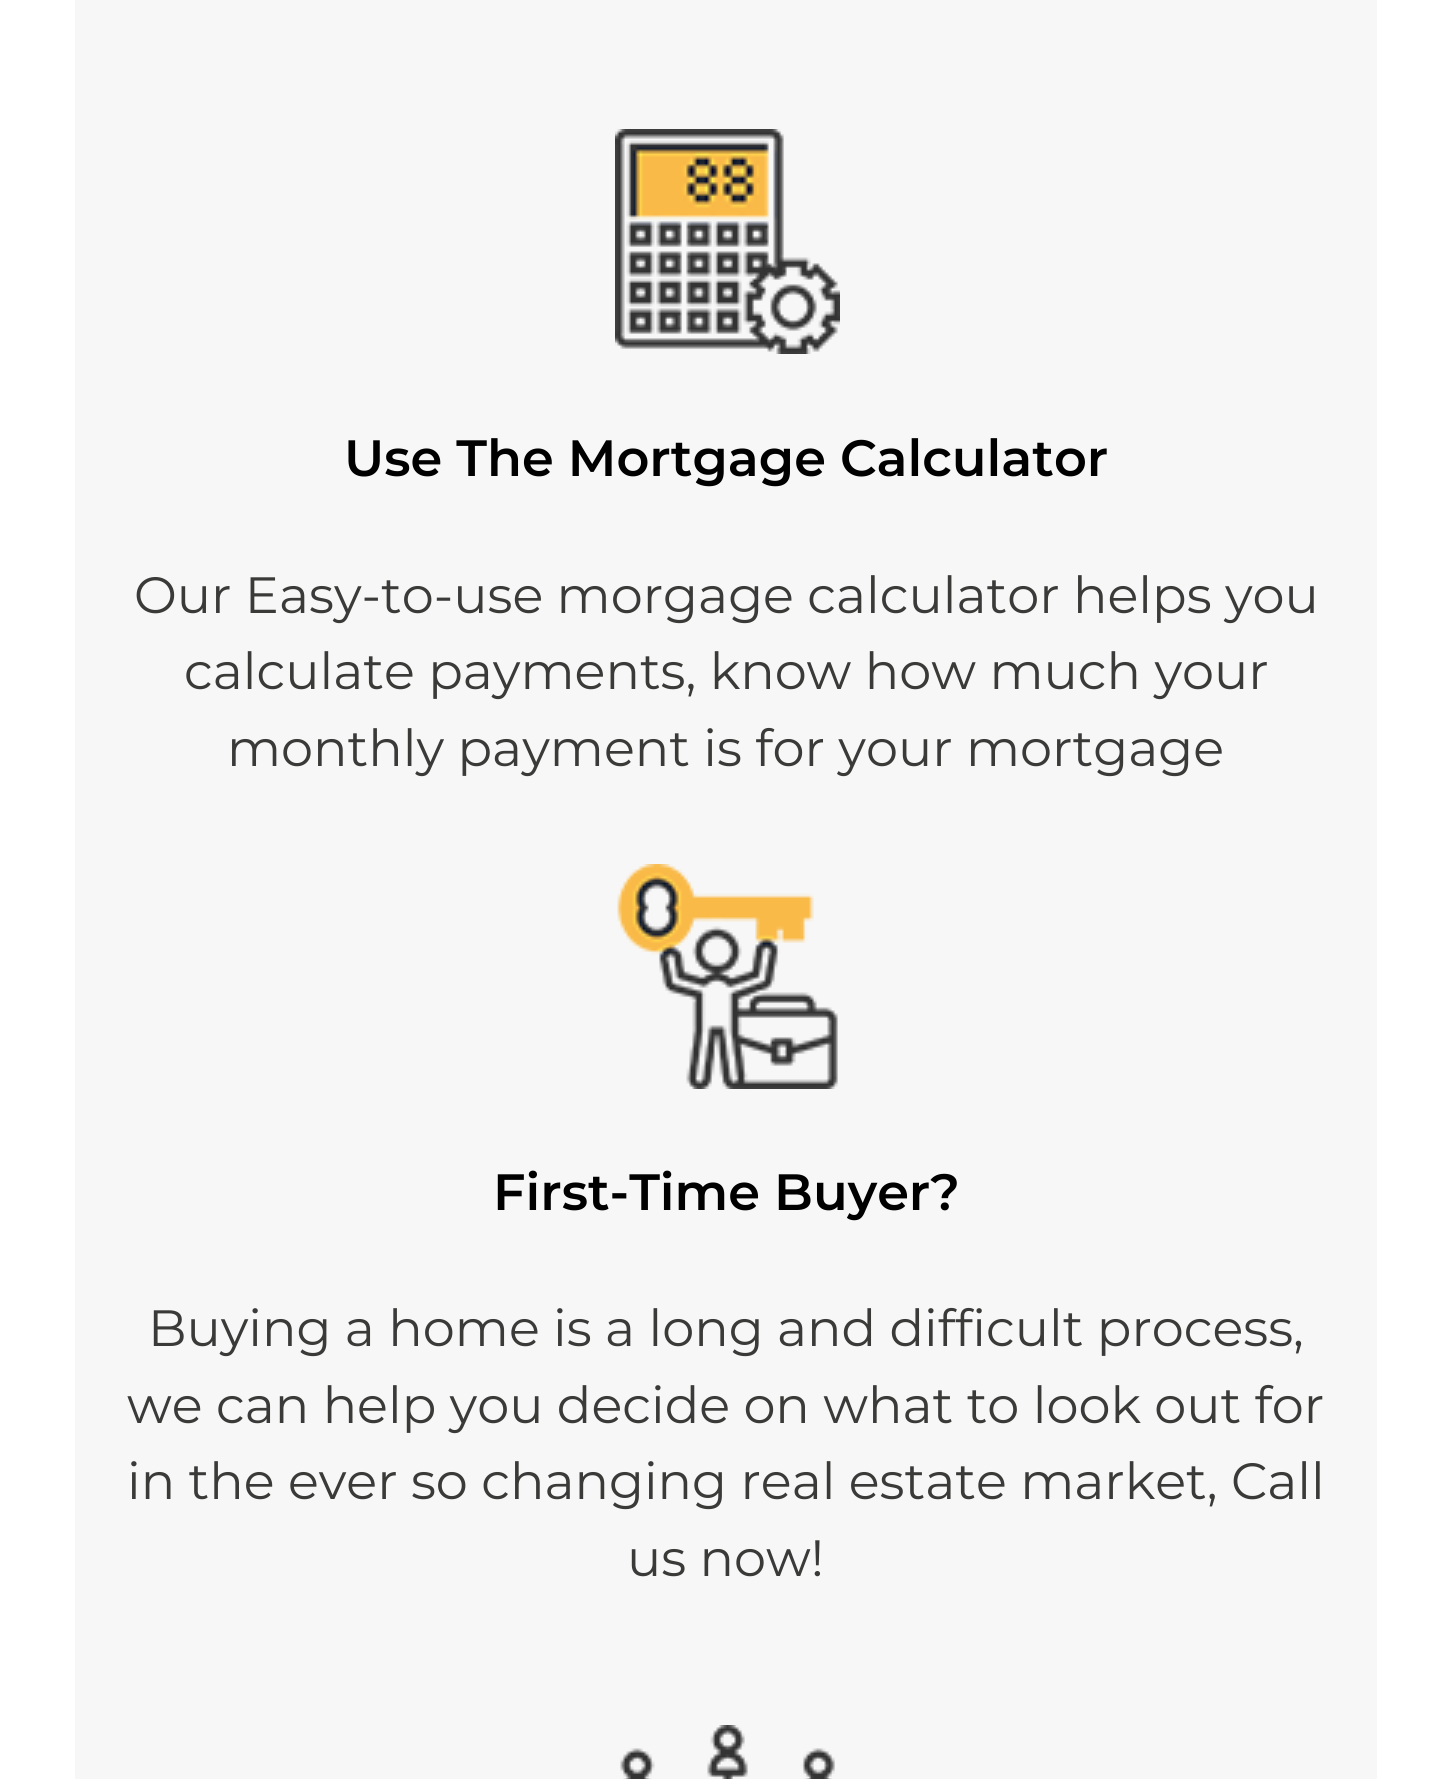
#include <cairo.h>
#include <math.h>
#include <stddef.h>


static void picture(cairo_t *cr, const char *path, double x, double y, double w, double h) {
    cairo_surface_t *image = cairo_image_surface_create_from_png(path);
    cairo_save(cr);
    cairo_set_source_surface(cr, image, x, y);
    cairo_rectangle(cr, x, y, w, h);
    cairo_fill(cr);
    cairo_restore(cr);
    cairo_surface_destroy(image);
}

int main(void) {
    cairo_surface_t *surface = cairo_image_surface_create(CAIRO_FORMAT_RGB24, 1451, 1779);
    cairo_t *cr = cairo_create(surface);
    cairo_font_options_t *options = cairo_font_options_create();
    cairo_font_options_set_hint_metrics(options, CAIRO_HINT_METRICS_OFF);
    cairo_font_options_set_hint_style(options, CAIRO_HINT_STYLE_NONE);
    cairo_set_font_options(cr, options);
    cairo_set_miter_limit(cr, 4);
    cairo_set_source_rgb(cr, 1, 1, 1);
    cairo_paint(cr);
    cairo_set_source_rgb(cr, 0.965, 0.965, 0.965);
    cairo_rectangle(cr, 75, 0, 1302, 1779);
    cairo_fill(cr);
    picture(cr, "img1.png", 615, 129, 225, 225);
    cairo_select_font_face(cr, "Montserrat SemiBold", CAIRO_FONT_SLANT_NORMAL, CAIRO_FONT_WEIGHT_NORMAL);
    cairo_set_font_size(cr, 51);
    cairo_set_source_rgb(cr, 0, 0, 0);
    cairo_move_to(cr, 344, 476);
    cairo_show_text(cr, "Use The Mortgage Calculator");
    cairo_select_font_face(cr, "Montserrat", CAIRO_FONT_SLANT_NORMAL, CAIRO_FONT_WEIGHT_NORMAL);
    cairo_set_source_rgb(cr, 0.227, 0.227, 0.22);
    cairo_move_to(cr, 134, 613);
    cairo_show_text(cr, "Our Easy-to-use morgage calculator helps you");
    cairo_move_to(cr, 184, 689);
    cairo_show_text(cr, "calculate payments, know how much your");
    cairo_move_to(cr, 227, 766);
    cairo_show_text(cr, "monthly payment is for your mortgage");
    picture(cr, "img2.png", 617, 864, 221, 225);
    cairo_select_font_face(cr, "Montserrat SemiBold", CAIRO_FONT_SLANT_NORMAL, CAIRO_FONT_WEIGHT_NORMAL);
    cairo_set_source_rgb(cr, 0, 0, 0);
    cairo_move_to(cr, 493, 1210);
    cairo_show_text(cr, "First-Time Buyer?");
    cairo_select_font_face(cr, "Montserrat", CAIRO_FONT_SLANT_NORMAL, CAIRO_FONT_WEIGHT_NORMAL);
    cairo_set_source_rgb(cr, 0.227, 0.227, 0.22);
    cairo_move_to(cr, 148, 1346);
    cairo_show_text(cr, "Buying a home is a long and difficult process,");
    cairo_move_to(cr, 127, 1423);
    cairo_show_text(cr, "we can help you decide on what to look out for");
    cairo_move_to(cr, 127, 1499);
    cairo_show_text(cr, "in the ever so changing real estate market, Call");
    cairo_move_to(cr, 627, 1576);
    cairo_show_text(cr, "us now!");
    picture(cr, "img3.png", 620, 1725, 215, 54);
    cairo_surface_write_to_png(surface, "page.png");
    cairo_font_options_destroy(options);
    cairo_destroy(cr);
    cairo_surface_destroy(surface);
    return 0;
}
